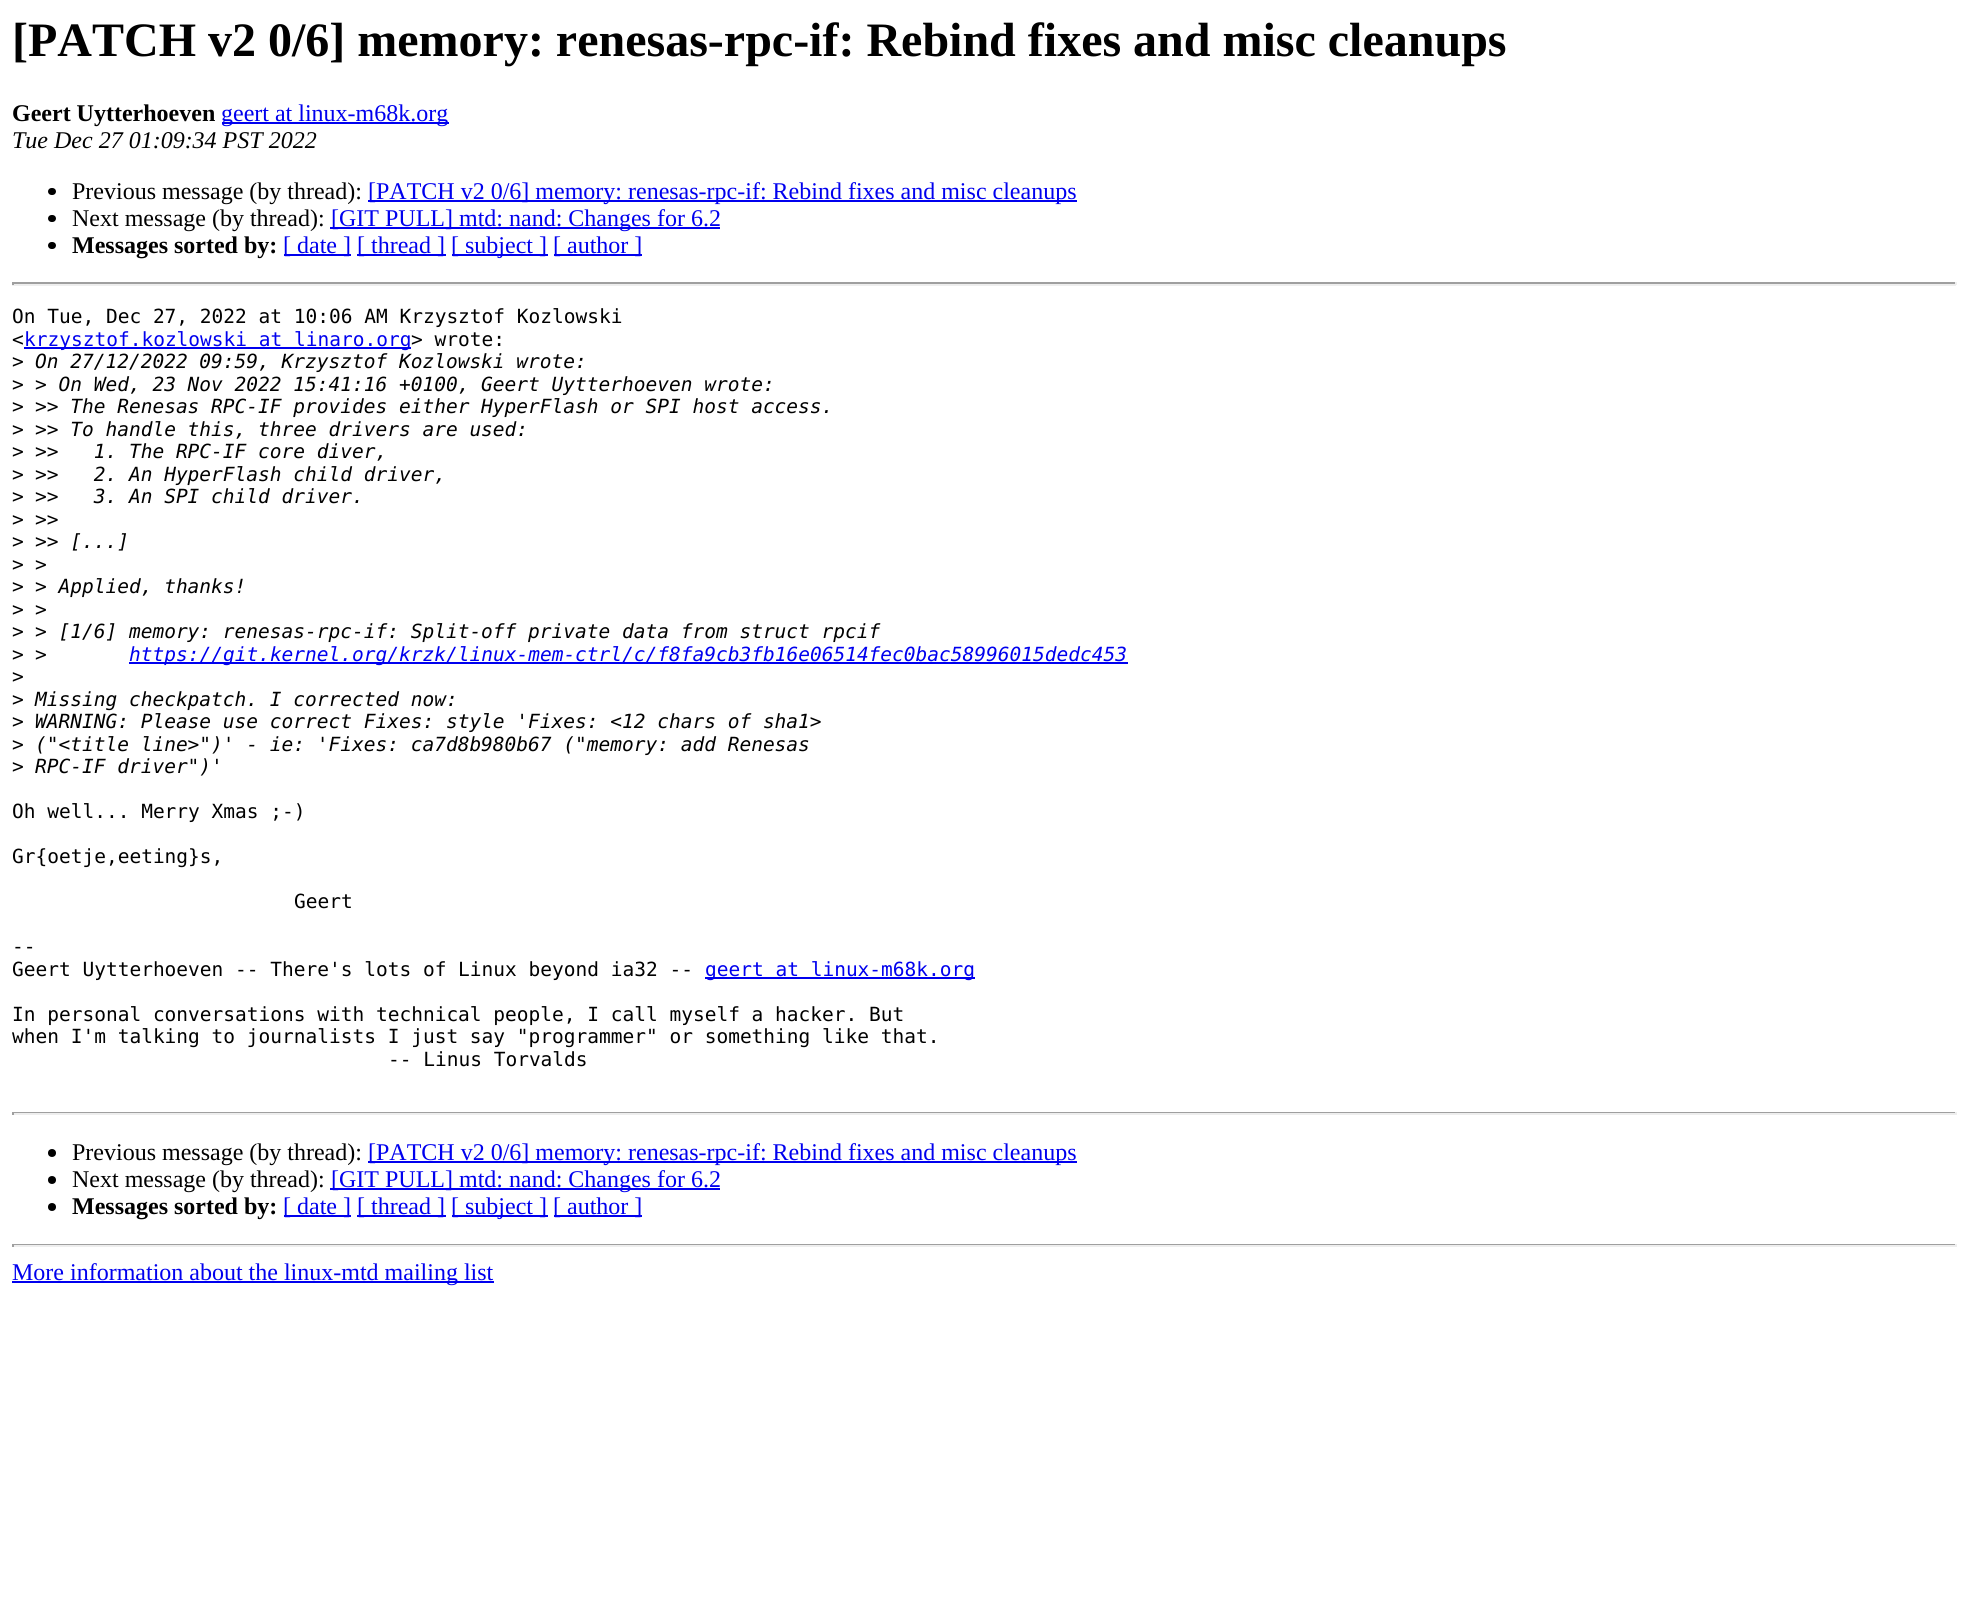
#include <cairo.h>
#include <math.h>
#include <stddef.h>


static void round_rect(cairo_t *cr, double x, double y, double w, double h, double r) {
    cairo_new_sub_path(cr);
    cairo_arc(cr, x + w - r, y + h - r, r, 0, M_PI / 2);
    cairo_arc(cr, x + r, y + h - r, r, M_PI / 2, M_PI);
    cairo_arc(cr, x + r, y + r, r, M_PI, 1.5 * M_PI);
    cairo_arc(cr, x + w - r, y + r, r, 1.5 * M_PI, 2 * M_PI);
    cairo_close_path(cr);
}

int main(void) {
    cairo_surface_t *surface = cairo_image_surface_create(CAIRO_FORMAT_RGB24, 1968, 1623);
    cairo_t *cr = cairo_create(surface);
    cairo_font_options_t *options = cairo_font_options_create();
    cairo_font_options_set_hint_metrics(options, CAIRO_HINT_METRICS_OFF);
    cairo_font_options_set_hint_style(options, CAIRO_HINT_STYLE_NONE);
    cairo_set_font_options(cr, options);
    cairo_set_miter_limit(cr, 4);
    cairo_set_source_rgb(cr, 1, 1, 1);
    cairo_paint(cr);
    cairo_select_font_face(cr, "Liberation Serif", CAIRO_FONT_SLANT_NORMAL, CAIRO_FONT_WEIGHT_BOLD);
    cairo_set_font_size(cr, 48);
    cairo_set_source_rgb(cr, 0, 0, 0);
    cairo_move_to(cr, 12, 56);
    cairo_show_text(cr, "[PATCH v2 0/6] memory: renesas-rpc-if: Rebind fixes and misc cleanups");
    cairo_set_font_size(cr, 24);
    cairo_move_to(cr, 12, 121);
    cairo_show_text(cr, "Geert Uytterhoeven");
    cairo_set_source_rgb(cr, 0, 0, 0.933);
    cairo_rectangle(cr, 222, 122, 227, 2);
    cairo_fill(cr);
    cairo_select_font_face(cr, "Liberation Serif", CAIRO_FONT_SLANT_NORMAL, CAIRO_FONT_WEIGHT_NORMAL);
    cairo_move_to(cr, 221, 121);
    cairo_show_text(cr, "geert at linux-m68k.org");
    cairo_select_font_face(cr, "Liberation Serif", CAIRO_FONT_SLANT_ITALIC, CAIRO_FONT_WEIGHT_NORMAL);
    cairo_set_source_rgb(cr, 0, 0, 0);
    cairo_move_to(cr, 12, 148);
    cairo_show_text(cr, "Tue Dec 27 01:09:34 PST 2022");
    round_rect(cr, 48, 188, 8, 7, 3.5);
    cairo_fill(cr);
    cairo_select_font_face(cr, "Liberation Serif", CAIRO_FONT_SLANT_NORMAL, CAIRO_FONT_WEIGHT_NORMAL);
    cairo_move_to(cr, 72, 199);
    cairo_show_text(cr, "Previous message (by thread):");
    cairo_set_source_rgb(cr, 0, 0, 0.933);
    cairo_rectangle(cr, 368, 200, 709, 2);
    cairo_fill(cr);
    cairo_move_to(cr, 368, 199);
    cairo_show_text(cr, "[PATCH v2 0/6] memory: renesas-rpc-if: Rebind fixes and misc cleanups");
    cairo_set_source_rgb(cr, 0, 0, 0);
    round_rect(cr, 48, 215, 8, 7, 3.5);
    cairo_fill(cr);
    cairo_move_to(cr, 72, 226);
    cairo_show_text(cr, "Next message (by thread):");
    cairo_set_source_rgb(cr, 0, 0, 0.933);
    cairo_rectangle(cr, 330, 227, 390, 2);
    cairo_fill(cr);
    cairo_move_to(cr, 331, 226);
    cairo_show_text(cr, "[GIT PULL] mtd: nand: Changes for 6.2");
    cairo_set_source_rgb(cr, 0, 0, 0);
    round_rect(cr, 48, 242, 8, 7, 3.5);
    cairo_fill(cr);
    cairo_select_font_face(cr, "Liberation Serif", CAIRO_FONT_SLANT_NORMAL, CAIRO_FONT_WEIGHT_BOLD);
    cairo_move_to(cr, 72, 253);
    cairo_show_text(cr, "Messages sorted by:");
    cairo_set_source_rgb(cr, 0, 0, 0.933);
    cairo_rectangle(cr, 284, 254, 67, 2);
    cairo_fill(cr);
    cairo_select_font_face(cr, "Liberation Serif", CAIRO_FONT_SLANT_NORMAL, CAIRO_FONT_WEIGHT_NORMAL);
    cairo_move_to(cr, 283, 253);
    cairo_show_text(cr, "[ date ]");
    cairo_rectangle(cr, 357, 254, 89, 2);
    cairo_fill(cr);
    cairo_move_to(cr, 357, 253);
    cairo_show_text(cr, "[ thread ]");
    cairo_rectangle(cr, 452, 254, 96, 2);
    cairo_fill(cr);
    cairo_move_to(cr, 451, 253);
    cairo_show_text(cr, "[ subject ]");
    cairo_rectangle(cr, 554, 254, 88, 2);
    cairo_fill(cr);
    cairo_move_to(cr, 553, 253);
    cairo_show_text(cr, "[ author ]");
    cairo_set_source_rgb(cr, 0.624, 0.624, 0.624);
    cairo_rectangle(cr, 12, 282, 1944, 2);
    cairo_fill(cr);
    cairo_set_source_rgb(cr, 0.933, 0.933, 0.933);
    cairo_rectangle(cr, 1955, 282, 2, 3);
    cairo_fill(cr);
    cairo_rectangle(cr, 12, 284, 1944, 2);
    cairo_fill(cr);
    cairo_set_source_rgb(cr, 0.624, 0.624, 0.624);
    cairo_rectangle(cr, 12, 282, 2, 3);
    cairo_fill(cr);
    cairo_select_font_face(cr, "DejaVu Sans Mono", CAIRO_FONT_SLANT_NORMAL, CAIRO_FONT_WEIGHT_NORMAL);
    cairo_set_font_size(cr, 19.5);
    cairo_set_source_rgb(cr, 0, 0, 0);
    cairo_move_to(cr, 12, 323);
    cairo_show_text(cr, "On Tue, Dec 27, 2022 at 10:06 AM Krzysztof Kozlowski");
    cairo_move_to(cr, 12, 346);
    cairo_show_text(cr, "<");
    cairo_set_source_rgb(cr, 0, 0, 0.933);
    cairo_rectangle(cr, 24, 347, 387, 2);
    cairo_fill(cr);
    cairo_move_to(cr, 24, 346);
    cairo_show_text(cr, "krzysztof.kozlowski at linaro.org");
    cairo_set_source_rgb(cr, 0, 0, 0);
    cairo_move_to(cr, 411, 346);
    cairo_show_text(cr, "> wrote:");
    cairo_move_to(cr, 12, 368);
    cairo_show_text(cr, ">");
    cairo_select_font_face(cr, "DejaVu Sans Mono", CAIRO_FONT_SLANT_ITALIC, CAIRO_FONT_WEIGHT_NORMAL);
    cairo_move_to(cr, 35, 368);
    cairo_show_text(cr, "On 27/12/2022 09:59, Krzysztof Kozlowski wrote:");
    cairo_select_font_face(cr, "DejaVu Sans Mono", CAIRO_FONT_SLANT_NORMAL, CAIRO_FONT_WEIGHT_NORMAL);
    cairo_move_to(cr, 12, 391);
    cairo_show_text(cr, ">");
    cairo_select_font_face(cr, "DejaVu Sans Mono", CAIRO_FONT_SLANT_ITALIC, CAIRO_FONT_WEIGHT_NORMAL);
    cairo_move_to(cr, 35, 391);
    cairo_show_text(cr, "> On Wed, 23 Nov 2022 15:41:16 +0100, Geert Uytterhoeven wrote:");
    cairo_select_font_face(cr, "DejaVu Sans Mono", CAIRO_FONT_SLANT_NORMAL, CAIRO_FONT_WEIGHT_NORMAL);
    cairo_move_to(cr, 12, 413);
    cairo_show_text(cr, ">");
    cairo_select_font_face(cr, "DejaVu Sans Mono", CAIRO_FONT_SLANT_ITALIC, CAIRO_FONT_WEIGHT_NORMAL);
    cairo_move_to(cr, 35, 413);
    cairo_show_text(cr, ">> The Renesas RPC-IF provides either HyperFlash or SPI host access.");
    cairo_select_font_face(cr, "DejaVu Sans Mono", CAIRO_FONT_SLANT_NORMAL, CAIRO_FONT_WEIGHT_NORMAL);
    cairo_move_to(cr, 12, 436);
    cairo_show_text(cr, ">");
    cairo_select_font_face(cr, "DejaVu Sans Mono", CAIRO_FONT_SLANT_ITALIC, CAIRO_FONT_WEIGHT_NORMAL);
    cairo_move_to(cr, 35, 436);
    cairo_show_text(cr, ">> To handle this, three drivers are used:");
    cairo_select_font_face(cr, "DejaVu Sans Mono", CAIRO_FONT_SLANT_NORMAL, CAIRO_FONT_WEIGHT_NORMAL);
    cairo_move_to(cr, 12, 458);
    cairo_show_text(cr, ">");
    cairo_select_font_face(cr, "DejaVu Sans Mono", CAIRO_FONT_SLANT_ITALIC, CAIRO_FONT_WEIGHT_NORMAL);
    cairo_move_to(cr, 35, 458);
    cairo_show_text(cr, ">>   1. The RPC-IF core diver,");
    cairo_select_font_face(cr, "DejaVu Sans Mono", CAIRO_FONT_SLANT_NORMAL, CAIRO_FONT_WEIGHT_NORMAL);
    cairo_move_to(cr, 12, 481);
    cairo_show_text(cr, ">");
    cairo_select_font_face(cr, "DejaVu Sans Mono", CAIRO_FONT_SLANT_ITALIC, CAIRO_FONT_WEIGHT_NORMAL);
    cairo_move_to(cr, 35, 481);
    cairo_show_text(cr, ">>   2. An HyperFlash child driver,");
    cairo_select_font_face(cr, "DejaVu Sans Mono", CAIRO_FONT_SLANT_NORMAL, CAIRO_FONT_WEIGHT_NORMAL);
    cairo_move_to(cr, 12, 503);
    cairo_show_text(cr, ">");
    cairo_select_font_face(cr, "DejaVu Sans Mono", CAIRO_FONT_SLANT_ITALIC, CAIRO_FONT_WEIGHT_NORMAL);
    cairo_move_to(cr, 35, 503);
    cairo_show_text(cr, ">>   3. An SPI child driver.");
    cairo_select_font_face(cr, "DejaVu Sans Mono", CAIRO_FONT_SLANT_NORMAL, CAIRO_FONT_WEIGHT_NORMAL);
    cairo_move_to(cr, 12, 526);
    cairo_show_text(cr, ">");
    cairo_select_font_face(cr, "DejaVu Sans Mono", CAIRO_FONT_SLANT_ITALIC, CAIRO_FONT_WEIGHT_NORMAL);
    cairo_move_to(cr, 35, 526);
    cairo_show_text(cr, ">>");
    cairo_select_font_face(cr, "DejaVu Sans Mono", CAIRO_FONT_SLANT_NORMAL, CAIRO_FONT_WEIGHT_NORMAL);
    cairo_move_to(cr, 12, 548);
    cairo_show_text(cr, ">");
    cairo_select_font_face(cr, "DejaVu Sans Mono", CAIRO_FONT_SLANT_ITALIC, CAIRO_FONT_WEIGHT_NORMAL);
    cairo_move_to(cr, 35, 548);
    cairo_show_text(cr, ">> [...]");
    cairo_select_font_face(cr, "DejaVu Sans Mono", CAIRO_FONT_SLANT_NORMAL, CAIRO_FONT_WEIGHT_NORMAL);
    cairo_move_to(cr, 12, 571);
    cairo_show_text(cr, ">");
    cairo_select_font_face(cr, "DejaVu Sans Mono", CAIRO_FONT_SLANT_ITALIC, CAIRO_FONT_WEIGHT_NORMAL);
    cairo_move_to(cr, 35, 571);
    cairo_show_text(cr, ">");
    cairo_select_font_face(cr, "DejaVu Sans Mono", CAIRO_FONT_SLANT_NORMAL, CAIRO_FONT_WEIGHT_NORMAL);
    cairo_move_to(cr, 12, 593);
    cairo_show_text(cr, ">");
    cairo_select_font_face(cr, "DejaVu Sans Mono", CAIRO_FONT_SLANT_ITALIC, CAIRO_FONT_WEIGHT_NORMAL);
    cairo_move_to(cr, 35, 593);
    cairo_show_text(cr, "> Applied, thanks!");
    cairo_select_font_face(cr, "DejaVu Sans Mono", CAIRO_FONT_SLANT_NORMAL, CAIRO_FONT_WEIGHT_NORMAL);
    cairo_move_to(cr, 12, 616);
    cairo_show_text(cr, ">");
    cairo_select_font_face(cr, "DejaVu Sans Mono", CAIRO_FONT_SLANT_ITALIC, CAIRO_FONT_WEIGHT_NORMAL);
    cairo_move_to(cr, 35, 616);
    cairo_show_text(cr, ">");
    cairo_select_font_face(cr, "DejaVu Sans Mono", CAIRO_FONT_SLANT_NORMAL, CAIRO_FONT_WEIGHT_NORMAL);
    cairo_move_to(cr, 12, 638);
    cairo_show_text(cr, ">");
    cairo_select_font_face(cr, "DejaVu Sans Mono", CAIRO_FONT_SLANT_ITALIC, CAIRO_FONT_WEIGHT_NORMAL);
    cairo_move_to(cr, 35, 638);
    cairo_show_text(cr, "> [1/6] memory: renesas-rpc-if: Split-off private data from struct rpcif");
    cairo_select_font_face(cr, "DejaVu Sans Mono", CAIRO_FONT_SLANT_NORMAL, CAIRO_FONT_WEIGHT_NORMAL);
    cairo_move_to(cr, 12, 661);
    cairo_show_text(cr, ">");
    cairo_select_font_face(cr, "DejaVu Sans Mono", CAIRO_FONT_SLANT_ITALIC, CAIRO_FONT_WEIGHT_NORMAL);
    cairo_move_to(cr, 35, 661);
    cairo_show_text(cr, ">");
    cairo_set_source_rgb(cr, 0, 0, 0.933);
    cairo_rectangle(cr, 129, 662, 999, 2);
    cairo_fill(cr);
    cairo_move_to(cr, 129, 661);
    cairo_show_text(cr, "https://git.kernel.org/krzk/linux-mem-ctrl/c/f8fa9cb3fb16e06514fec0bac58996015dedc453");
    cairo_select_font_face(cr, "DejaVu Sans Mono", CAIRO_FONT_SLANT_NORMAL, CAIRO_FONT_WEIGHT_NORMAL);
    cairo_set_source_rgb(cr, 0, 0, 0);
    cairo_move_to(cr, 12, 683);
    cairo_show_text(cr, ">");
    cairo_move_to(cr, 12, 706);
    cairo_show_text(cr, ">");
    cairo_select_font_face(cr, "DejaVu Sans Mono", CAIRO_FONT_SLANT_ITALIC, CAIRO_FONT_WEIGHT_NORMAL);
    cairo_move_to(cr, 35, 706);
    cairo_show_text(cr, "Missing checkpatch. I corrected now:");
    cairo_select_font_face(cr, "DejaVu Sans Mono", CAIRO_FONT_SLANT_NORMAL, CAIRO_FONT_WEIGHT_NORMAL);
    cairo_move_to(cr, 12, 728);
    cairo_show_text(cr, ">");
    cairo_select_font_face(cr, "DejaVu Sans Mono", CAIRO_FONT_SLANT_ITALIC, CAIRO_FONT_WEIGHT_NORMAL);
    cairo_move_to(cr, 35, 728);
    cairo_show_text(cr, "WARNING: Please use correct Fixes: style 'Fixes: <12 chars of sha1>");
    cairo_select_font_face(cr, "DejaVu Sans Mono", CAIRO_FONT_SLANT_NORMAL, CAIRO_FONT_WEIGHT_NORMAL);
    cairo_move_to(cr, 12, 751);
    cairo_show_text(cr, ">");
    cairo_select_font_face(cr, "DejaVu Sans Mono", CAIRO_FONT_SLANT_ITALIC, CAIRO_FONT_WEIGHT_NORMAL);
    cairo_move_to(cr, 35, 751);
    cairo_show_text(cr, "(\"<title line>\")' - ie: 'Fixes: ca7d8b980b67 (\"memory: add Renesas");
    cairo_select_font_face(cr, "DejaVu Sans Mono", CAIRO_FONT_SLANT_NORMAL, CAIRO_FONT_WEIGHT_NORMAL);
    cairo_move_to(cr, 12, 773);
    cairo_show_text(cr, ">");
    cairo_select_font_face(cr, "DejaVu Sans Mono", CAIRO_FONT_SLANT_ITALIC, CAIRO_FONT_WEIGHT_NORMAL);
    cairo_move_to(cr, 35, 773);
    cairo_show_text(cr, "RPC-IF driver\")'");
    cairo_select_font_face(cr, "DejaVu Sans Mono", CAIRO_FONT_SLANT_NORMAL, CAIRO_FONT_WEIGHT_NORMAL);
    cairo_move_to(cr, 12, 818);
    cairo_show_text(cr, "Oh well... Merry Xmas ;-)");
    cairo_move_to(cr, 12, 863);
    cairo_show_text(cr, "Gr{oetje,eeting}s,");
    cairo_move_to(cr, 294, 908);
    cairo_show_text(cr, "Geert");
    cairo_move_to(cr, 12, 953);
    cairo_show_text(cr, "--");
    cairo_move_to(cr, 12, 976);
    cairo_show_text(cr, "Geert Uytterhoeven -- There's lots of Linux beyond ia32 --");
    cairo_set_source_rgb(cr, 0, 0, 0.933);
    cairo_rectangle(cr, 705, 977, 270, 2);
    cairo_fill(cr);
    cairo_move_to(cr, 705, 976);
    cairo_show_text(cr, "geert at linux-m68k.org");
    cairo_set_source_rgb(cr, 0, 0, 0);
    cairo_move_to(cr, 12, 1021);
    cairo_show_text(cr, "In personal conversations with technical people, I call myself a hacker. But");
    cairo_move_to(cr, 12, 1043);
    cairo_show_text(cr, "when I'm talking to journalists I just say \"programmer\" or something like that.");
    cairo_move_to(cr, 388, 1066);
    cairo_show_text(cr, "-- Linus Torvalds");
    cairo_set_source_rgb(cr, 0.624, 0.624, 0.624);
    cairo_rectangle(cr, 12, 1112, 1944, 1);
    cairo_fill(cr);
    cairo_set_source_rgb(cr, 0.933, 0.933, 0.933);
    cairo_rectangle(cr, 1955, 1112, 2, 3);
    cairo_fill(cr);
    cairo_rectangle(cr, 12, 1113, 1944, 2);
    cairo_fill(cr);
    cairo_set_source_rgb(cr, 0.624, 0.624, 0.624);
    cairo_rectangle(cr, 12, 1112, 2, 3);
    cairo_fill(cr);
    cairo_set_source_rgb(cr, 0, 0, 0);
    cairo_arc(cr, 52, 1153, 4, 0, 2 * M_PI);
    cairo_fill(cr);
    cairo_select_font_face(cr, "Liberation Serif", CAIRO_FONT_SLANT_NORMAL, CAIRO_FONT_WEIGHT_NORMAL);
    cairo_set_font_size(cr, 24);
    cairo_move_to(cr, 72, 1160);
    cairo_show_text(cr, "Previous message (by thread):");
    cairo_set_source_rgb(cr, 0, 0, 0.933);
    cairo_rectangle(cr, 368, 1161, 709, 2);
    cairo_fill(cr);
    cairo_move_to(cr, 368, 1160);
    cairo_show_text(cr, "[PATCH v2 0/6] memory: renesas-rpc-if: Rebind fixes and misc cleanups");
    cairo_set_source_rgb(cr, 0, 0, 0);
    cairo_new_path(cr);
    cairo_arc(cr, 52, 1180, 4, 0, 2 * M_PI);
    cairo_fill(cr);
    cairo_move_to(cr, 72, 1187);
    cairo_show_text(cr, "Next message (by thread):");
    cairo_set_source_rgb(cr, 0, 0, 0.933);
    cairo_rectangle(cr, 330, 1188, 390, 2);
    cairo_fill(cr);
    cairo_move_to(cr, 331, 1187);
    cairo_show_text(cr, "[GIT PULL] mtd: nand: Changes for 6.2");
    cairo_set_source_rgb(cr, 0, 0, 0);
    cairo_new_path(cr);
    cairo_arc(cr, 52, 1207, 4, 0, 2 * M_PI);
    cairo_fill(cr);
    cairo_select_font_face(cr, "Liberation Serif", CAIRO_FONT_SLANT_NORMAL, CAIRO_FONT_WEIGHT_BOLD);
    cairo_move_to(cr, 72, 1214);
    cairo_show_text(cr, "Messages sorted by:");
    cairo_set_source_rgb(cr, 0, 0, 0.933);
    cairo_rectangle(cr, 284, 1215, 67, 2);
    cairo_fill(cr);
    cairo_select_font_face(cr, "Liberation Serif", CAIRO_FONT_SLANT_NORMAL, CAIRO_FONT_WEIGHT_NORMAL);
    cairo_move_to(cr, 283, 1214);
    cairo_show_text(cr, "[ date ]");
    cairo_rectangle(cr, 357, 1215, 89, 2);
    cairo_fill(cr);
    cairo_move_to(cr, 357, 1214);
    cairo_show_text(cr, "[ thread ]");
    cairo_rectangle(cr, 452, 1215, 96, 2);
    cairo_fill(cr);
    cairo_move_to(cr, 451, 1214);
    cairo_show_text(cr, "[ subject ]");
    cairo_rectangle(cr, 554, 1215, 88, 2);
    cairo_fill(cr);
    cairo_move_to(cr, 553, 1214);
    cairo_show_text(cr, "[ author ]");
    cairo_set_source_rgb(cr, 0.624, 0.624, 0.624);
    cairo_rectangle(cr, 12, 1244, 1944, 1);
    cairo_fill(cr);
    cairo_set_source_rgb(cr, 0.933, 0.933, 0.933);
    cairo_rectangle(cr, 1955, 1244, 2, 3);
    cairo_fill(cr);
    cairo_rectangle(cr, 12, 1245, 1944, 2);
    cairo_fill(cr);
    cairo_set_source_rgb(cr, 0.624, 0.624, 0.624);
    cairo_rectangle(cr, 12, 1244, 2, 3);
    cairo_fill(cr);
    cairo_set_source_rgb(cr, 0, 0, 0.933);
    cairo_rectangle(cr, 12, 1281, 482, 2);
    cairo_fill(cr);
    cairo_move_to(cr, 12, 1280);
    cairo_show_text(cr, "More information about the linux-mtd mailing list");
    cairo_surface_write_to_png(surface, "page.png");
    cairo_font_options_destroy(options);
    cairo_destroy(cr);
    cairo_surface_destroy(surface);
    return 0;
}
